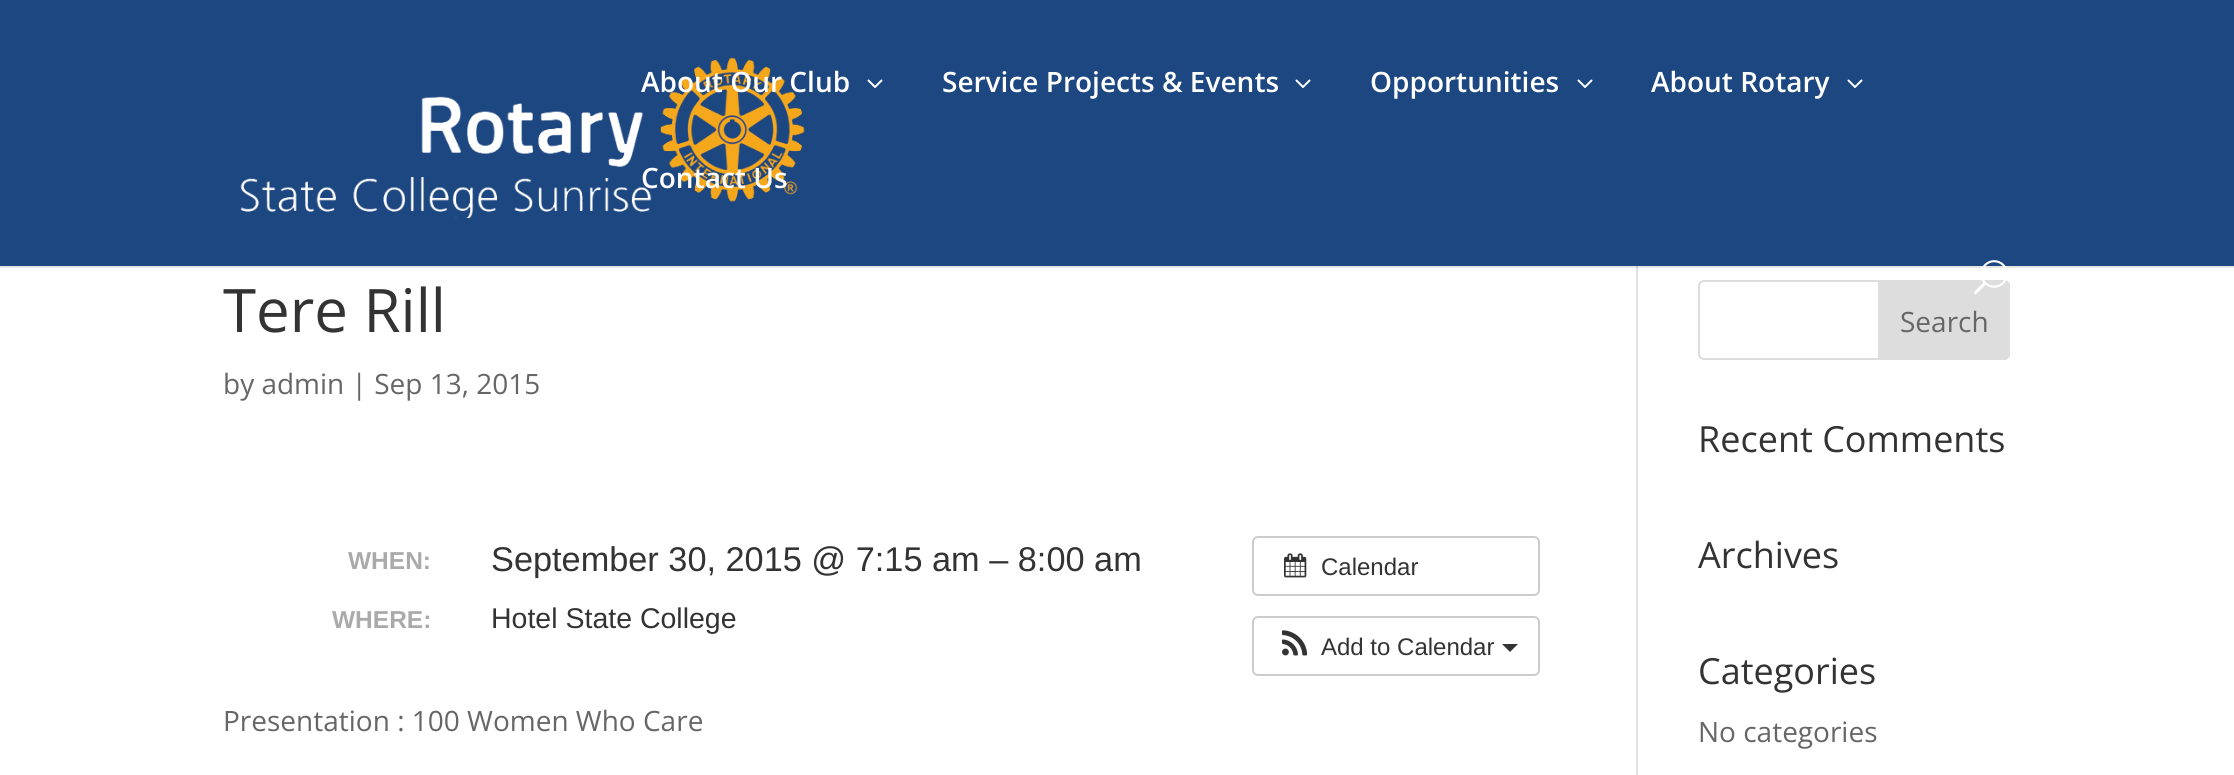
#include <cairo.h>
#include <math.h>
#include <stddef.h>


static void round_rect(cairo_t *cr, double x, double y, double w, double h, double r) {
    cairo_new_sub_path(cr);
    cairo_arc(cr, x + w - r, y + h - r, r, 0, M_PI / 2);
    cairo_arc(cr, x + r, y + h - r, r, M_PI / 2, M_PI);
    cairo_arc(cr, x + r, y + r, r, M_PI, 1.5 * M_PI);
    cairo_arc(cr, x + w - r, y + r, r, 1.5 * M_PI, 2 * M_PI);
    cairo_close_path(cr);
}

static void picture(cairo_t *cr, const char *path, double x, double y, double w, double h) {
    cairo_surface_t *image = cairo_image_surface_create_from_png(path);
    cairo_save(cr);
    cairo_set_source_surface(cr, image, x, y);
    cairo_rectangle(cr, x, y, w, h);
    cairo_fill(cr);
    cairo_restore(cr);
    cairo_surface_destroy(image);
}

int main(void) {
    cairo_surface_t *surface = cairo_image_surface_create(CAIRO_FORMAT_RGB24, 2234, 775);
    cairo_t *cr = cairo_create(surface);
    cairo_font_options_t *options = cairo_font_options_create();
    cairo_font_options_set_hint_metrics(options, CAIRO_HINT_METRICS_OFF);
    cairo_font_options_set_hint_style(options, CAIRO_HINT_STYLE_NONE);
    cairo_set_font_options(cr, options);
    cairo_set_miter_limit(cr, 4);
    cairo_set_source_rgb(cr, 1, 1, 1);
    cairo_paint(cr);
    cairo_set_source_rgb(cr, 0.902, 0.902, 0.902);
    cairo_rectangle(cr, 0, 266, 2234, 2);
    cairo_fill(cr);
    cairo_set_source_rgb(cr, 0.114, 0.278, 0.506);
    cairo_rectangle(cr, 0, 0, 2234, 266);
    cairo_fill(cr);
    picture(cr, "img1.png", 240, 57, 565, 161);
    cairo_select_font_face(cr, "Open Sans SemiBold", CAIRO_FONT_SLANT_NORMAL, CAIRO_FONT_WEIGHT_NORMAL);
    cairo_set_font_size(cr, 28);
    cairo_set_source_rgb(cr, 1, 1, 1);
    cairo_move_to(cr, 641, 92);
    cairo_show_text(cr, "About Our Club");
    picture(cr, "img2.png", 867, 79, 16, 9);
    cairo_move_to(cr, 942, 92);
    cairo_show_text(cr, "Service Projects & Events");
    picture(cr, "img2.png", 1295, 79, 16, 9);
    cairo_move_to(cr, 1370, 92);
    cairo_show_text(cr, "Opportunities");
    picture(cr, "img2.png", 1577, 79, 16, 9);
    cairo_move_to(cr, 1651, 92);
    cairo_show_text(cr, "About Rotary");
    picture(cr, "img2.png", 1847, 79, 16, 9);
    cairo_move_to(cr, 641, 188);
    cairo_show_text(cr, "Contact Us");
    round_rect(cr, 1699, 281, 310, 78, 5);
    cairo_set_source_rgb(cr, 0.867, 0.867, 0.867);
    cairo_stroke(cr);
    cairo_new_path(cr);
    cairo_move_to(cr, 1879, 281);
    cairo_line_to(cr, 2004, 281);
    cairo_curve_to(cr, 2007, 281, 2009, 283, 2009, 286);
    cairo_line_to(cr, 2009, 354);
    cairo_curve_to(cr, 2009, 357, 2007, 359, 2004, 359);
    cairo_line_to(cr, 1879, 359);
    cairo_close_path(cr);
    cairo_fill_preserve(cr);
    cairo_stroke(cr);
    picture(cr, "img3.png", 1974, 260, 33, 35);
    cairo_set_source_rgb(cr, 0.886, 0.886, 0.886);
    cairo_rectangle(cr, 1636, 268, 2, 507);
    cairo_fill(cr);
    cairo_set_source_rgb(cr, 0.796, 0.796, 0.796);
    cairo_rectangle(cr, 1636, 266, 2, 2);
    cairo_fill(cr);
    cairo_select_font_face(cr, "Open Sans", CAIRO_FONT_SLANT_NORMAL, CAIRO_FONT_WEIGHT_NORMAL);
    cairo_set_font_size(cr, 60);
    cairo_set_source_rgb(cr, 0.2, 0.2, 0.2);
    cairo_move_to(cr, 223, 332);
    cairo_show_text(cr, "Tere Rill");
    cairo_set_font_size(cr, 28);
    cairo_set_source_rgb(cr, 0.4, 0.4, 0.4);
    cairo_move_to(cr, 223, 394);
    cairo_show_text(cr, "by admin | Sep 13, 2015");
    cairo_select_font_face(cr, "Liberation Sans", CAIRO_FONT_SLANT_NORMAL, CAIRO_FONT_WEIGHT_BOLD);
    cairo_set_font_size(cr, 24.5);
    cairo_set_source_rgb(cr, 0.667, 0.667, 0.667);
    cairo_move_to(cr, 348, 569);
    cairo_show_text(cr, "WHEN:");
    cairo_select_font_face(cr, "Liberation Sans", CAIRO_FONT_SLANT_NORMAL, CAIRO_FONT_WEIGHT_NORMAL);
    cairo_set_font_size(cr, 34.3);
    cairo_set_source_rgb(cr, 0.2, 0.2, 0.2);
    cairo_move_to(cr, 491, 571);
    cairo_show_text(cr, "September 30, 2015 @ 7:15 am – 8:00 am");
    cairo_select_font_face(cr, "Liberation Sans", CAIRO_FONT_SLANT_NORMAL, CAIRO_FONT_WEIGHT_BOLD);
    cairo_set_font_size(cr, 24.5);
    cairo_set_source_rgb(cr, 0.667, 0.667, 0.667);
    cairo_move_to(cr, 332, 628);
    cairo_show_text(cr, "WHERE:");
    cairo_select_font_face(cr, "Liberation Sans", CAIRO_FONT_SLANT_NORMAL, CAIRO_FONT_WEIGHT_NORMAL);
    cairo_set_font_size(cr, 28.5);
    cairo_set_source_rgb(cr, 0.2, 0.2, 0.2);
    cairo_move_to(cr, 491, 628);
    cairo_show_text(cr, "Hotel State College");
    round_rect(cr, 1253, 537, 286, 58, 5);
    cairo_set_source_rgb(cr, 0.8, 0.8, 0.8);
    cairo_stroke(cr);
    picture(cr, "img4.png", 1284, 553, 23, 25);
    cairo_set_font_size(cr, 24);
    cairo_set_source_rgb(cr, 0.2, 0.2, 0.2);
    cairo_move_to(cr, 1321, 575);
    cairo_show_text(cr, "Calendar");
    round_rect(cr, 1253, 617, 286, 58, 5);
    cairo_set_source_rgb(cr, 0.8, 0.8, 0.8);
    cairo_stroke(cr);
    picture(cr, "img5.png", 1282, 630, 26, 26);
    cairo_set_source_rgb(cr, 0.2, 0.2, 0.2);
    cairo_move_to(cr, 1321, 655);
    cairo_show_text(cr, "Add to Calendar");
    cairo_new_path(cr);
    cairo_move_to(cr, 1502, 644);
    cairo_line_to(cr, 1518, 644);
    cairo_line_to(cr, 1510, 652);
    cairo_close_path(cr);
    cairo_fill(cr);
    cairo_select_font_face(cr, "Open Sans", CAIRO_FONT_SLANT_NORMAL, CAIRO_FONT_WEIGHT_NORMAL);
    cairo_set_font_size(cr, 28);
    cairo_set_source_rgb(cr, 0.4, 0.4, 0.4);
    cairo_move_to(cr, 223, 731);
    cairo_show_text(cr, "Presentation : 100 Women Who Care");
    cairo_move_to(cr, 1900, 332);
    cairo_show_text(cr, "Search");
    cairo_set_font_size(cr, 36);
    cairo_set_source_rgb(cr, 0.2, 0.2, 0.2);
    cairo_move_to(cr, 1698, 452);
    cairo_show_text(cr, "Recent Comments");
    cairo_move_to(cr, 1698, 568);
    cairo_show_text(cr, "Archives");
    cairo_move_to(cr, 1698, 684);
    cairo_show_text(cr, "Categories");
    cairo_set_font_size(cr, 28);
    cairo_set_source_rgb(cr, 0.4, 0.4, 0.4);
    cairo_move_to(cr, 1698, 742);
    cairo_show_text(cr, "No categories");
    cairo_surface_write_to_png(surface, "page.png");
    cairo_font_options_destroy(options);
    cairo_destroy(cr);
    cairo_surface_destroy(surface);
    return 0;
}
